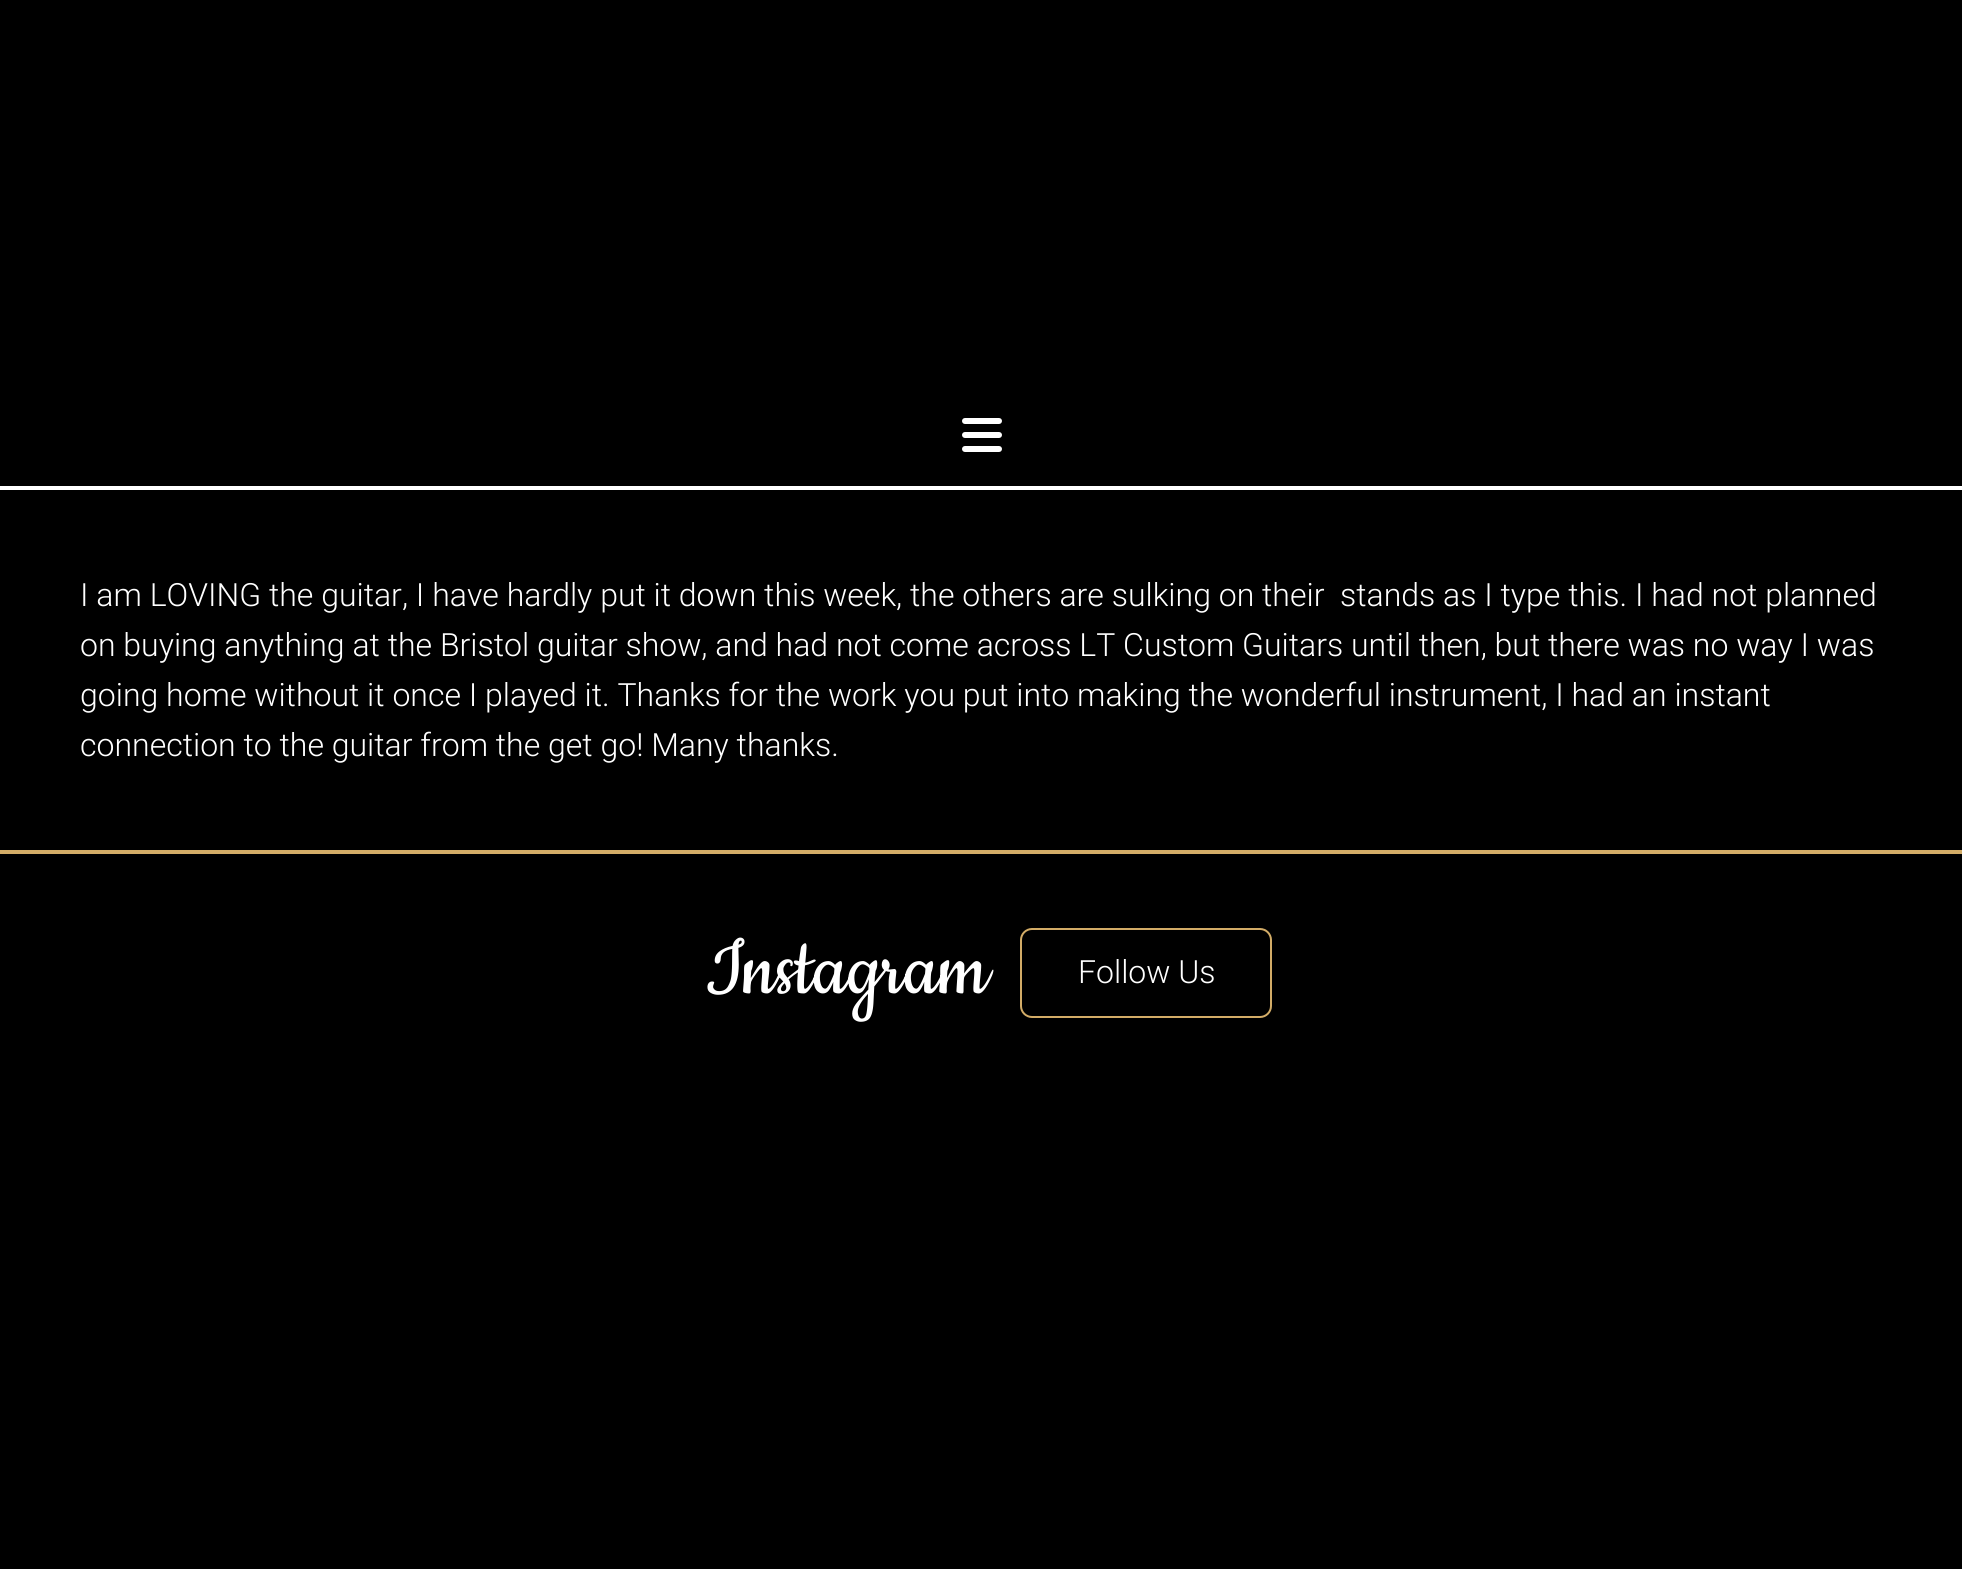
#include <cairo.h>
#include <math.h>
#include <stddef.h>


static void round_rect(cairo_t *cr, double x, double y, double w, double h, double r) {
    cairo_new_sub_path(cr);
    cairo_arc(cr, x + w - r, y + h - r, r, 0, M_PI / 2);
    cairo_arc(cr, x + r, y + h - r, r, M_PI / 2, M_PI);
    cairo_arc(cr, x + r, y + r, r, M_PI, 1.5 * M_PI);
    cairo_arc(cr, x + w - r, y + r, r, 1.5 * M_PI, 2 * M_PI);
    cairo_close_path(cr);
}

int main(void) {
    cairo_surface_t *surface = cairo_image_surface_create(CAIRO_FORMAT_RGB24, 1962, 1569);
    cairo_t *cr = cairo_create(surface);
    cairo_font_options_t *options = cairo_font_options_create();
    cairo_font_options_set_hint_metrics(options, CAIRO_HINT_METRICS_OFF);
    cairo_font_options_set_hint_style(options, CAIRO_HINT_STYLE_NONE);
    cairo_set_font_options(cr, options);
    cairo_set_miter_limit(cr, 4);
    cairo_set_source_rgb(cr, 0, 0, 0);
    cairo_paint(cr);
    cairo_set_source_rgb(cr, 1, 1, 1);
    cairo_rectangle(cr, 0, 486, 1962, 4);
    cairo_fill(cr);
    round_rect(cr, 962, 432, 40, 6, 3);
    cairo_fill(cr);
    round_rect(cr, 962, 418, 40, 6, 3);
    cairo_fill(cr);
    round_rect(cr, 962, 446, 40, 6, 3);
    cairo_fill(cr);
    cairo_select_font_face(cr, "Roboto Light", CAIRO_FONT_SLANT_NORMAL, CAIRO_FONT_WEIGHT_NORMAL);
    cairo_set_font_size(cr, 32);
    cairo_move_to(cr, 80, 606);
    cairo_show_text(cr, "I am LOVING the guitar, I have hardly put it down this week, the others are sulking on their  stands as I type this. I had not planned");
    cairo_move_to(cr, 80, 656);
    cairo_show_text(cr, "on buying anything at the Bristol guitar show, and had not come across LT Custom Guitars until then, but there was no way I was");
    cairo_move_to(cr, 80, 706);
    cairo_show_text(cr, "going home without it once I played it. Thanks for the work you put into making the wonderful instrument, I had an instant");
    cairo_move_to(cr, 80, 756);
    cairo_show_text(cr, "connection to the guitar from the get go! Many thanks.");
    cairo_set_source_rgb(cr, 0.827, 0.675, 0.404);
    cairo_rectangle(cr, 0, 850, 1962, 4);
    cairo_fill(cr);
    cairo_select_font_face(cr, "Cookie", CAIRO_FONT_SLANT_NORMAL, CAIRO_FONT_WEIGHT_NORMAL);
    cairo_set_font_size(cr, 90);
    cairo_set_source_rgb(cr, 1, 1, 1);
    cairo_move_to(cr, 705, 993);
    cairo_show_text(cr, "Instagram");
    round_rect(cr, 1021, 929, 250, 88, 11);
    cairo_set_source_rgb(cr, 0.827, 0.675, 0.404);
    cairo_stroke(cr);
    cairo_select_font_face(cr, "Roboto Light", CAIRO_FONT_SLANT_NORMAL, CAIRO_FONT_WEIGHT_NORMAL);
    cairo_set_font_size(cr, 32);
    cairo_set_source_rgb(cr, 1, 1, 1);
    cairo_move_to(cr, 1078, 983);
    cairo_show_text(cr, "Follow Us");
    cairo_surface_write_to_png(surface, "page.png");
    cairo_font_options_destroy(options);
    cairo_destroy(cr);
    cairo_surface_destroy(surface);
    return 0;
}
